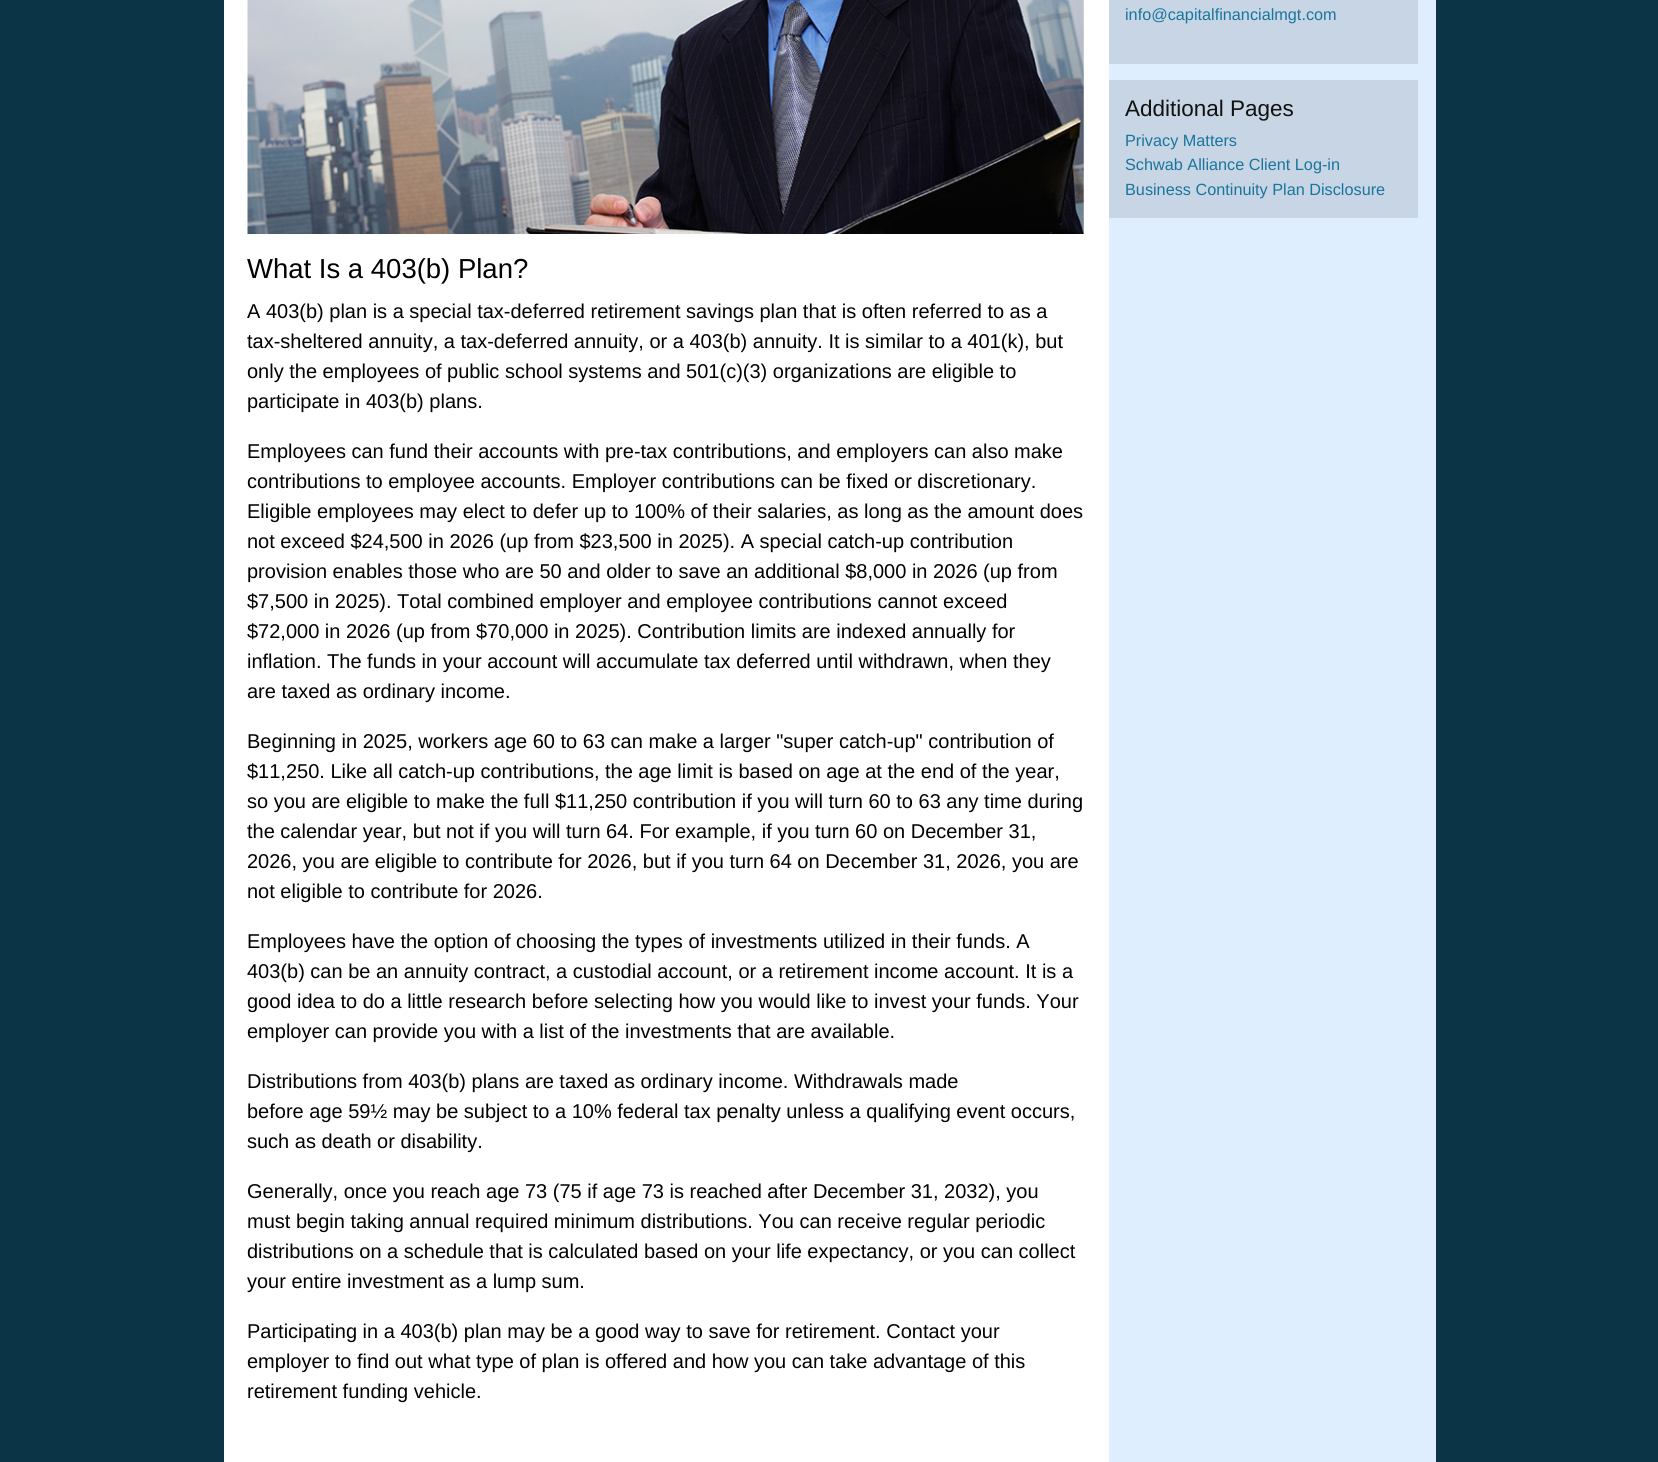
#include <cairo.h>
#include <math.h>
#include <stddef.h>


static void picture(cairo_t *cr, const char *path, double x, double y, double w, double h) {
    cairo_surface_t *image = cairo_image_surface_create_from_png(path);
    cairo_save(cr);
    cairo_set_source_surface(cr, image, x, y);
    cairo_rectangle(cr, x, y, w, h);
    cairo_fill(cr);
    cairo_restore(cr);
    cairo_surface_destroy(image);
}

int main(void) {
    cairo_surface_t *surface = cairo_image_surface_create(CAIRO_FORMAT_RGB24, 1658, 1462);
    cairo_t *cr = cairo_create(surface);
    cairo_font_options_t *options = cairo_font_options_create();
    cairo_font_options_set_hint_metrics(options, CAIRO_HINT_METRICS_OFF);
    cairo_font_options_set_hint_style(options, CAIRO_HINT_STYLE_NONE);
    cairo_set_font_options(cr, options);
    cairo_set_miter_limit(cr, 4);
    cairo_set_source_rgb(cr, 0.043, 0.208, 0.275);
    cairo_paint(cr);
    cairo_set_source_rgb(cr, 0.875, 0.933, 1);
    cairo_rectangle(cr, 1109, 0, 327, 1462);
    cairo_fill(cr);
    cairo_set_source_rgb(cr, 0.78, 0.835, 0.894);
    cairo_rectangle(cr, 1109, 0, 309, 64);
    cairo_fill(cr);
    cairo_select_font_face(cr, "Liberation Sans", CAIRO_FONT_SLANT_NORMAL, CAIRO_FONT_WEIGHT_NORMAL);
    cairo_set_font_size(cr, 16.25);
    cairo_set_source_rgb(cr, 0.098, 0.459, 0.62);
    cairo_move_to(cr, 1125, 20);
    cairo_show_text(cr, "info@capitalfinancialmgt.com");
    cairo_set_source_rgb(cr, 0.78, 0.835, 0.894);
    cairo_rectangle(cr, 1109, 80, 309, 138);
    cairo_fill(cr);
    cairo_set_font_size(cr, 22.5);
    cairo_set_source_rgb(cr, 0.067, 0.067, 0.067);
    cairo_move_to(cr, 1125, 116);
    cairo_show_text(cr, "Additional Pages");
    cairo_set_font_size(cr, 16.25);
    cairo_set_source_rgb(cr, 0.098, 0.459, 0.62);
    cairo_move_to(cr, 1125, 146);
    cairo_show_text(cr, "Privacy Matters");
    cairo_move_to(cr, 1125, 170);
    cairo_show_text(cr, "Schwab Alliance Client Log-in");
    cairo_move_to(cr, 1125, 195);
    cairo_show_text(cr, "Business Continuity Plan Disclosure");
    cairo_set_source_rgb(cr, 1, 1, 1);
    cairo_rectangle(cr, 224, 0, 885, 1462);
    cairo_fill(cr);
    picture(cr, "img1.png", 247, 0, 837, 234);
    cairo_set_font_size(cr, 27.5);
    cairo_set_source_rgb(cr, 0, 0, 0);
    cairo_move_to(cr, 247, 278);
    cairo_show_text(cr, "What Is a 403(b) Plan?");
    cairo_set_font_size(cr, 20);
    cairo_move_to(cr, 247, 318);
    cairo_show_text(cr, "A 403(b) plan is a special tax-deferred retirement savings plan that is often referred to as a");
    cairo_move_to(cr, 247, 348);
    cairo_show_text(cr, "tax-sheltered annuity, a tax-deferred annuity, or a 403(b) annuity. It is similar to a 401(k), but");
    cairo_move_to(cr, 247, 378);
    cairo_show_text(cr, "only the employees of public school systems and 501(c)(3) organizations are eligible to");
    cairo_move_to(cr, 247, 408);
    cairo_show_text(cr, "participate in 403(b) plans.");
    cairo_move_to(cr, 247, 458);
    cairo_show_text(cr, "Employees can fund their accounts with pre-tax contributions, and employers can also make");
    cairo_move_to(cr, 247, 488);
    cairo_show_text(cr, "contributions to employee accounts. Employer contributions can be fixed or discretionary.");
    cairo_move_to(cr, 247, 518);
    cairo_show_text(cr, "Eligible employees may elect to defer up to 100% of their salaries, as long as the amount does");
    cairo_move_to(cr, 247, 548);
    cairo_show_text(cr, "not exceed $24,500 in 2026 (up from $23,500 in 2025). A special catch-up contribution");
    cairo_move_to(cr, 247, 578);
    cairo_show_text(cr, "provision enables those who are 50 and older to save an additional $8,000 in 2026 (up from");
    cairo_move_to(cr, 247, 608);
    cairo_show_text(cr, "$7,500 in 2025). Total combined employer and employee contributions cannot exceed");
    cairo_move_to(cr, 247, 638);
    cairo_show_text(cr, "$72,000 in 2026 (up from $70,000 in 2025). Contribution limits are indexed annually for");
    cairo_move_to(cr, 247, 668);
    cairo_show_text(cr, "inflation. The funds in your account will accumulate tax deferred until withdrawn, when they");
    cairo_move_to(cr, 247, 698);
    cairo_show_text(cr, "are taxed as ordinary income.");
    cairo_move_to(cr, 247, 748);
    cairo_show_text(cr, "Beginning in 2025, workers age 60 to 63 can make a larger \"super catch-up\" contribution of");
    cairo_move_to(cr, 247, 778);
    cairo_show_text(cr, "$11,250. Like all catch-up contributions, the age limit is based on age at the end of the year,");
    cairo_move_to(cr, 247, 808);
    cairo_show_text(cr, "so you are eligible to make the full $11,250 contribution if you will turn 60 to 63 any time during");
    cairo_move_to(cr, 247, 838);
    cairo_show_text(cr, "the calendar year, but not if you will turn 64. For example, if you turn 60 on December 31,");
    cairo_move_to(cr, 247, 868);
    cairo_show_text(cr, "2026, you are eligible to contribute for 2026, but if you turn 64 on December 31, 2026, you are");
    cairo_move_to(cr, 247, 898);
    cairo_show_text(cr, "not eligible to contribute for 2026.");
    cairo_move_to(cr, 247, 948);
    cairo_show_text(cr, "Employees have the option of choosing the types of investments utilized in their funds. A");
    cairo_move_to(cr, 247, 978);
    cairo_show_text(cr, "403(b) can be an annuity contract, a custodial account, or a retirement income account. It is a");
    cairo_move_to(cr, 247, 1008);
    cairo_show_text(cr, "good idea to do a little research before selecting how you would like to invest your funds. Your");
    cairo_move_to(cr, 247, 1038);
    cairo_show_text(cr, "employer can provide you with a list of the investments that are available.");
    cairo_move_to(cr, 247, 1088);
    cairo_show_text(cr, "Distributions from 403(b) plans are taxed as ordinary income. Withdrawals made");
    cairo_move_to(cr, 247, 1118);
    cairo_show_text(cr, "before age 59½ may be subject to a 10% federal tax penalty unless a qualifying event occurs,");
    cairo_move_to(cr, 247, 1148);
    cairo_show_text(cr, "such as death or disability.");
    cairo_move_to(cr, 247, 1198);
    cairo_show_text(cr, "Generally, once you reach age 73 (75 if age 73 is reached after December 31, 2032), you");
    cairo_move_to(cr, 247, 1228);
    cairo_show_text(cr, "must begin taking annual required minimum distributions. You can receive regular periodic");
    cairo_move_to(cr, 247, 1258);
    cairo_show_text(cr, "distributions on a schedule that is calculated based on your life expectancy, or you can collect");
    cairo_move_to(cr, 247, 1288);
    cairo_show_text(cr, "your entire investment as a lump sum.");
    cairo_move_to(cr, 247, 1338);
    cairo_show_text(cr, "Participating in a 403(b) plan may be a good way to save for retirement. Contact your");
    cairo_move_to(cr, 247, 1368);
    cairo_show_text(cr, "employer to find out what type of plan is offered and how you can take advantage of this");
    cairo_move_to(cr, 247, 1398);
    cairo_show_text(cr, "retirement funding vehicle.");
    cairo_surface_write_to_png(surface, "page.png");
    cairo_font_options_destroy(options);
    cairo_destroy(cr);
    cairo_surface_destroy(surface);
    return 0;
}
